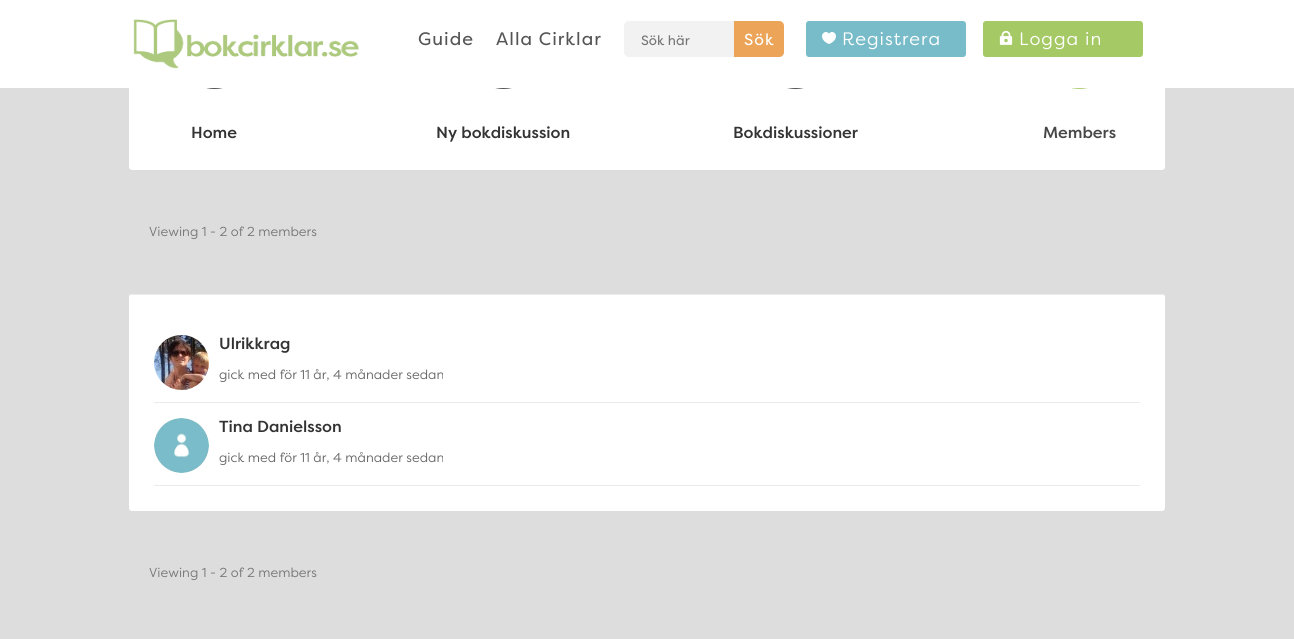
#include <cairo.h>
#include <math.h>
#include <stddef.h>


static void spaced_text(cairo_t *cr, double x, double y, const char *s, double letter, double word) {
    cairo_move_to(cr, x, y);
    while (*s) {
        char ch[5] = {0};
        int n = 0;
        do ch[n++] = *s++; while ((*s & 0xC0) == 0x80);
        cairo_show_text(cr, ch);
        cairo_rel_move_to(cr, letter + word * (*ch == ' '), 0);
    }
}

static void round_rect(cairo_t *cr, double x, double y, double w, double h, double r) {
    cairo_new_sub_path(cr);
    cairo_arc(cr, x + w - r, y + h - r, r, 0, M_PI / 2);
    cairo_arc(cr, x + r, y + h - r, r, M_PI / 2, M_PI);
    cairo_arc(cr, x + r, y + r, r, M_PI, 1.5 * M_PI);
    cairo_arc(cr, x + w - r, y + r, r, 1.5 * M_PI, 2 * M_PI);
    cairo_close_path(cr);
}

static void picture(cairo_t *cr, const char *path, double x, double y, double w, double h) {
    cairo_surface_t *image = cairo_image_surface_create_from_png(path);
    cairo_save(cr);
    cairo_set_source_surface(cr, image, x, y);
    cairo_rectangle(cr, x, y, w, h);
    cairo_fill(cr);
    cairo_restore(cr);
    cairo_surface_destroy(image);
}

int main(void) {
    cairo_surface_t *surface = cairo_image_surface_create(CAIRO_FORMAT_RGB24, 1294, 639);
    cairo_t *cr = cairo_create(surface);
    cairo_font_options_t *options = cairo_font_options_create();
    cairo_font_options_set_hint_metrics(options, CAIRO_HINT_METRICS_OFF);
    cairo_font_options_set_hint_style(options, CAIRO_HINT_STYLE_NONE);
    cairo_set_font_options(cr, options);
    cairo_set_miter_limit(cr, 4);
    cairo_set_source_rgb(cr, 0.867, 0.867, 0.867);
    cairo_paint(cr);
    cairo_set_source_rgb(cr, 1, 1, 1);
    round_rect(cr, 129, -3, 1036, 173, 3);
    cairo_fill(cr);
    cairo_set_source_rgb(cr, 0.333, 0.333, 0.333);
    cairo_arc(cr, 214.5, 53.5, 35.5, 0, 2 * M_PI);
    cairo_fill(cr);
    cairo_arc(cr, 503.5, 53.5, 35.5, 0, 2 * M_PI);
    cairo_fill(cr);
    cairo_arc(cr, 795.5, 53.5, 35.5, 0, 2 * M_PI);
    cairo_fill(cr);
    cairo_set_source_rgb(cr, 0.682, 0.808, 0.455);
    cairo_arc(cr, 1079.5, 53.5, 35.5, 0, 2 * M_PI);
    cairo_fill(cr);
    cairo_set_source_rgb(cr, 1, 1, 1);
    cairo_rectangle(cr, 0, 0, 1294, 88);
    cairo_fill(cr);
    picture(cr, "img1.png", 133, 19, 226, 50);
    cairo_select_font_face(cr, "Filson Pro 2", CAIRO_FONT_SLANT_NORMAL, CAIRO_FONT_WEIGHT_NORMAL);
    cairo_set_font_size(cr, 18);
    cairo_set_source_rgb(cr, 0.333, 0.333, 0.333);
    spaced_text(cr, 418, 45, "Guide", 1, 0);
    spaced_text(cr, 496, 45, "Alla Cirklar", 1, 0);
    cairo_set_source_rgb(cr, 0.949, 0.949, 0.949);
    round_rect(cr, 624.5, 21.5, 119, 35, 4.5);
    cairo_fill_preserve(cr);
    cairo_set_line_width(cr, 1);
    cairo_stroke(cr);
    cairo_set_font_size(cr, 13.5);
    cairo_set_source_rgb(cr, 0.463, 0.463, 0.463);
    cairo_move_to(cr, 641, 45);
    cairo_show_text(cr, "Sök här");
    cairo_set_source_rgb(cr, 0.925, 0.643, 0.349);
    cairo_new_path(cr);
    cairo_move_to(cr, 734, 21);
    cairo_line_to(cr, 779, 21);
    cairo_curve_to(cr, 782, 21, 784, 23, 784, 26);
    cairo_line_to(cr, 784, 52);
    cairo_curve_to(cr, 784, 55, 782, 57, 779, 57);
    cairo_line_to(cr, 734, 57);
    cairo_close_path(cr);
    cairo_fill(cr);
    cairo_set_font_size(cr, 16);
    cairo_set_source_rgb(cr, 1, 1, 1);
    spaced_text(cr, 744, 45, "Sök", 1, 0);
    cairo_set_source_rgb(cr, 0.475, 0.737, 0.788);
    round_rect(cr, 806.5, 21.5, 159, 35, 2.5);
    cairo_fill_preserve(cr);
    cairo_stroke(cr);
    picture(cr, "img2.png", 822, 32, 14, 12);
    cairo_select_font_face(cr, "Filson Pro", CAIRO_FONT_SLANT_NORMAL, CAIRO_FONT_WEIGHT_NORMAL);
    cairo_set_font_size(cr, 18);
    cairo_set_source_rgb(cr, 1, 1, 1);
    spaced_text(cr, 842, 45, "Registrera", 1, 0);
    cairo_set_source_rgb(cr, 0.647, 0.788, 0.396);
    round_rect(cr, 983.5, 21.5, 159, 35, 2.5);
    cairo_fill_preserve(cr);
    cairo_stroke(cr);
    picture(cr, "img3.png", 999, 30, 14, 15);
    cairo_set_source_rgb(cr, 1, 1, 1);
    spaced_text(cr, 1019, 45, "Logga in", 1, 0);
    cairo_select_font_face(cr, "Filson Pro Medium", CAIRO_FONT_SLANT_NORMAL, CAIRO_FONT_WEIGHT_NORMAL);
    cairo_set_font_size(cr, 16);
    cairo_set_source_rgb(cr, 0.2, 0.2, 0.2);
    cairo_move_to(cr, 191, 138);
    cairo_show_text(cr, "Home");
    cairo_move_to(cr, 436, 138);
    cairo_show_text(cr, "Ny bokdiskussion");
    cairo_move_to(cr, 733, 138);
    cairo_show_text(cr, "Bokdiskussioner");
    cairo_set_source_rgb(cr, 0.278, 0.278, 0.278);
    cairo_move_to(cr, 1043, 138);
    cairo_show_text(cr, "Members");
    cairo_select_font_face(cr, "Filson Pro", CAIRO_FONT_SLANT_NORMAL, CAIRO_FONT_WEIGHT_NORMAL);
    cairo_set_font_size(cr, 13);
    cairo_set_source_rgb(cr, 0.463, 0.463, 0.463);
    cairo_move_to(cr, 149, 236);
    cairo_show_text(cr, "Viewing 1 - 2 of 2 members");
    cairo_set_source_rgb(cr, 1, 1, 1);
    round_rect(cr, 129, 294, 1036, 217, 3);
    cairo_fill(cr);
    cairo_set_source_rgb(cr, 0.918, 0.918, 0.918);
    cairo_rectangle(cr, 131, 294, 1033, 1);
    cairo_fill(cr);
    cairo_rectangle(cr, 154, 402, 986, 1);
    cairo_fill(cr);
    picture(cr, "img4.png", 154, 335, 55, 55);
    cairo_select_font_face(cr, "Filson Pro Medium", CAIRO_FONT_SLANT_NORMAL, CAIRO_FONT_WEIGHT_NORMAL);
    cairo_set_font_size(cr, 16);
    cairo_set_source_rgb(cr, 0.2, 0.2, 0.2);
    cairo_move_to(cr, 219, 349);
    cairo_show_text(cr, "Ulrikkrag");
    cairo_select_font_face(cr, "Filson Pro", CAIRO_FONT_SLANT_NORMAL, CAIRO_FONT_WEIGHT_NORMAL);
    cairo_set_font_size(cr, 13);
    cairo_set_source_rgb(cr, 0.4, 0.4, 0.4);
    cairo_move_to(cr, 219, 379);
    cairo_show_text(cr, "gick med för 11 år, 4 månader sedan");
    cairo_set_source_rgb(cr, 0.918, 0.918, 0.918);
    cairo_rectangle(cr, 154, 485, 986, 1);
    cairo_fill(cr);
    picture(cr, "img5.png", 154, 418, 55, 55);
    cairo_select_font_face(cr, "Filson Pro Medium", CAIRO_FONT_SLANT_NORMAL, CAIRO_FONT_WEIGHT_NORMAL);
    cairo_set_font_size(cr, 16);
    cairo_set_source_rgb(cr, 0.2, 0.2, 0.2);
    cairo_move_to(cr, 219, 432);
    cairo_show_text(cr, "Tina Danielsson");
    cairo_select_font_face(cr, "Filson Pro", CAIRO_FONT_SLANT_NORMAL, CAIRO_FONT_WEIGHT_NORMAL);
    cairo_set_font_size(cr, 13);
    cairo_set_source_rgb(cr, 0.4, 0.4, 0.4);
    cairo_move_to(cr, 219, 462);
    cairo_show_text(cr, "gick med för 11 år, 4 månader sedan");
    cairo_set_source_rgb(cr, 0.463, 0.463, 0.463);
    cairo_move_to(cr, 149, 577);
    cairo_show_text(cr, "Viewing 1 - 2 of 2 members");
    cairo_surface_write_to_png(surface, "page.png");
    cairo_font_options_destroy(options);
    cairo_destroy(cr);
    cairo_surface_destroy(surface);
    return 0;
}
